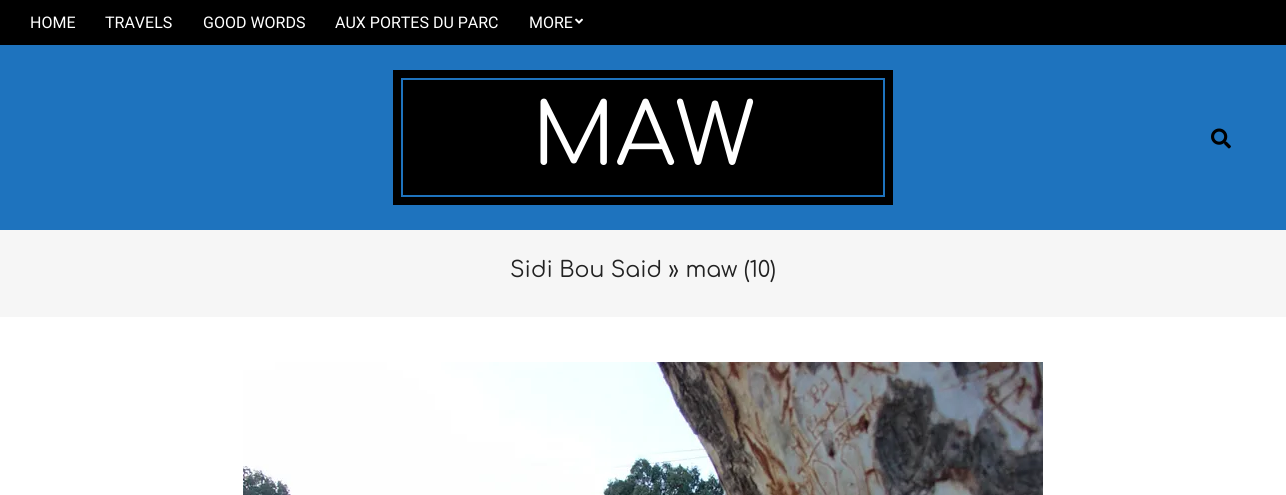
#include <cairo.h>
#include <math.h>
#include <stddef.h>


static void picture(cairo_t *cr, const char *path, double x, double y, double w, double h) {
    cairo_surface_t *image = cairo_image_surface_create_from_png(path);
    cairo_save(cr);
    cairo_set_source_surface(cr, image, x, y);
    cairo_rectangle(cr, x, y, w, h);
    cairo_fill(cr);
    cairo_restore(cr);
    cairo_surface_destroy(image);
}

int main(void) {
    cairo_surface_t *surface = cairo_image_surface_create(CAIRO_FORMAT_RGB24, 1286, 495);
    cairo_t *cr = cairo_create(surface);
    cairo_font_options_t *options = cairo_font_options_create();
    cairo_font_options_set_hint_metrics(options, CAIRO_HINT_METRICS_OFF);
    cairo_font_options_set_hint_style(options, CAIRO_HINT_STYLE_NONE);
    cairo_set_font_options(cr, options);
    cairo_set_miter_limit(cr, 4);
    cairo_set_source_rgb(cr, 0.118, 0.451, 0.745);
    cairo_paint(cr);
    cairo_set_source_rgb(cr, 0, 0, 0);
    cairo_rectangle(cr, 0, 0, 1286, 45);
    cairo_fill(cr);
    cairo_select_font_face(cr, "Roboto", CAIRO_FONT_SLANT_NORMAL, CAIRO_FONT_WEIGHT_NORMAL);
    cairo_set_font_size(cr, 16);
    cairo_set_source_rgb(cr, 1, 1, 1);
    cairo_move_to(cr, 30, 28);
    cairo_show_text(cr, "HOME");
    cairo_move_to(cr, 105, 28);
    cairo_show_text(cr, "TRAVELS");
    cairo_move_to(cr, 203, 28);
    cairo_show_text(cr, "GOOD WORDS");
    cairo_move_to(cr, 335, 28);
    cairo_show_text(cr, "AUX PORTES DU PARC");
    cairo_move_to(cr, 529, 28);
    cairo_show_text(cr, "MORE");
    picture(cr, "img1.png", 575, 18, 8, 6);
    cairo_rectangle(cr, 397, 74, 492, 127);
    cairo_set_source_rgb(cr, 0, 0, 0);
    cairo_set_line_width(cr, 8);
    cairo_stroke(cr);
    cairo_rectangle(cr, 403, 80, 480, 115);
    cairo_fill(cr);
    cairo_select_font_face(cr, "Comfortaa", CAIRO_FONT_SLANT_NORMAL, CAIRO_FONT_WEIGHT_NORMAL);
    cairo_set_font_size(cr, 85);
    cairo_set_source_rgb(cr, 1, 1, 1);
    cairo_move_to(cr, 532, 165);
    cairo_show_text(cr, "MAW");
    picture(cr, "img2.png", 1211, 128, 20, 21);
    cairo_rectangle(cr, 0, 317, 1286, 178);
    cairo_fill(cr);
    cairo_set_source_rgb(cr, 0.961, 0.961, 0.961);
    cairo_rectangle(cr, 0, 230, 1286, 87);
    cairo_fill(cr);
    cairo_set_font_size(cr, 22);
    cairo_set_source_rgb(cr, 0.133, 0.133, 0.133);
    cairo_move_to(cr, 510, 277);
    cairo_show_text(cr, "Sidi Bou Said » maw (10)");
    picture(cr, "img3.png", 243, 362, 800, 133);
    cairo_surface_write_to_png(surface, "page.png");
    cairo_font_options_destroy(options);
    cairo_destroy(cr);
    cairo_surface_destroy(surface);
    return 0;
}
